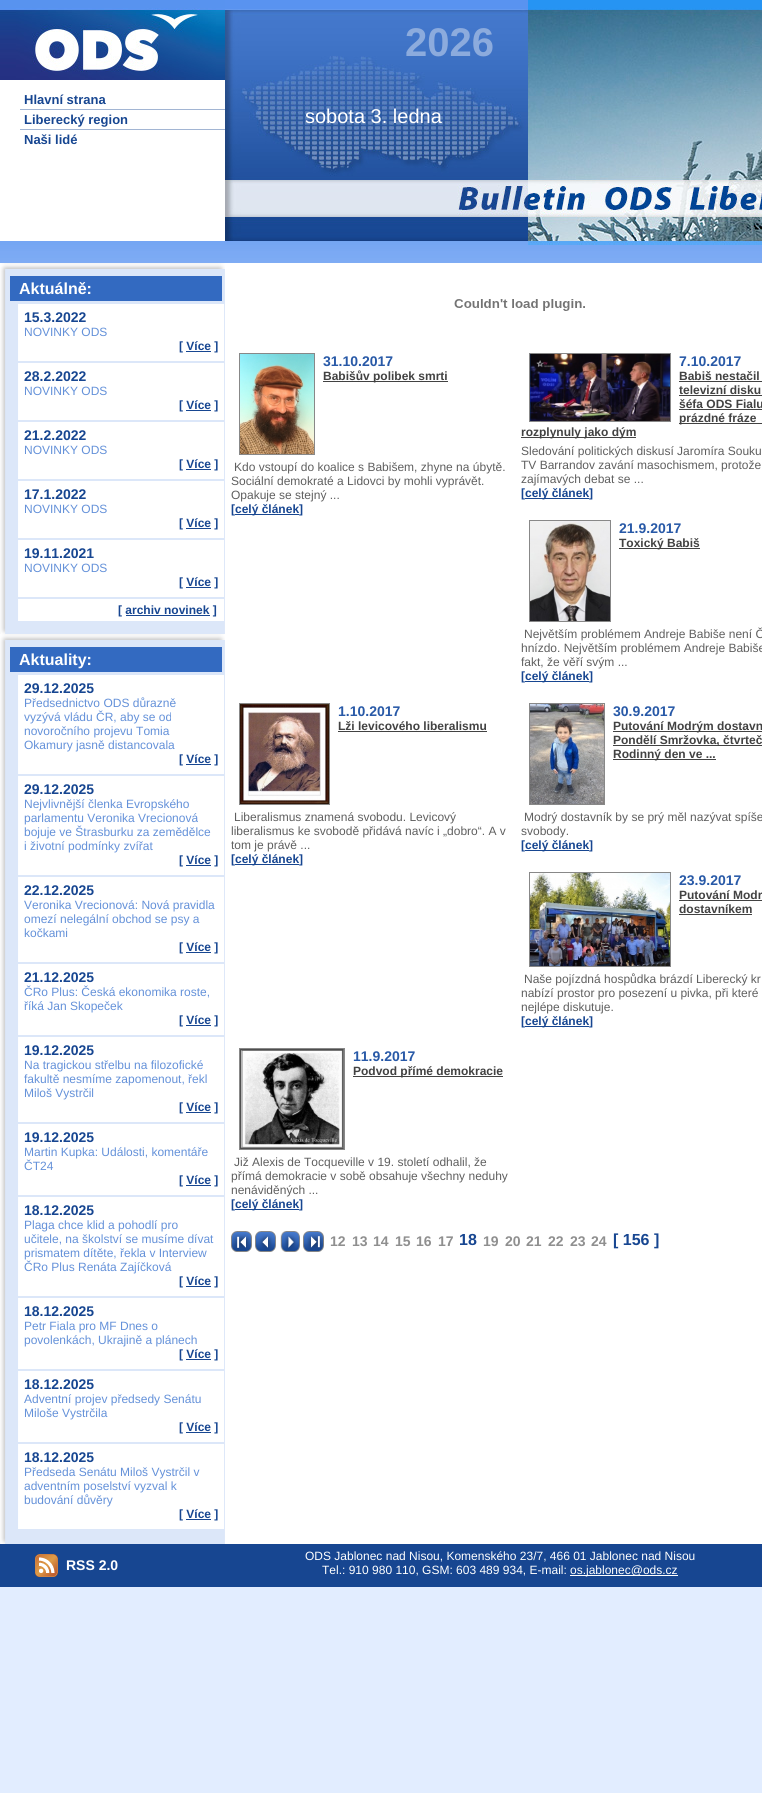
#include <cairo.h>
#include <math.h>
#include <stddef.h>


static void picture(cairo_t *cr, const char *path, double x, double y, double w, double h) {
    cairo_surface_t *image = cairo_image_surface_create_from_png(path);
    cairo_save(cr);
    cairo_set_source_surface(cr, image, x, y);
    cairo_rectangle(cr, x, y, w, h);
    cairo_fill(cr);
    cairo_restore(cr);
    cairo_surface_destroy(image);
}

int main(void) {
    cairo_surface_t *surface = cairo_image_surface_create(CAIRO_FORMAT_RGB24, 762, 1793);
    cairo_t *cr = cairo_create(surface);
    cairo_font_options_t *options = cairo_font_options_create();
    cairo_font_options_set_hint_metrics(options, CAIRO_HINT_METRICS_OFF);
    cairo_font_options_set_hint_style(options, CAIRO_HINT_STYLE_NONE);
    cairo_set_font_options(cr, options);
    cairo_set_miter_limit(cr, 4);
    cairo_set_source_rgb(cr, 0.886, 0.929, 1);
    cairo_paint(cr);
    picture(cr, "img1.png", 0, 0, 762, 263);
    cairo_set_source_rgb(cr, 1, 1, 1);
    cairo_rectangle(cr, 0, 80, 225, 161);
    cairo_fill(cr);
    picture(cr, "img2.png", 0, 0, 225, 80);
    cairo_set_source_rgb(cr, 0.635, 0.71, 0.827);
    cairo_rectangle(cr, 20, 109, 205, 1);
    cairo_fill(cr);
    cairo_select_font_face(cr, "Liberation Sans", CAIRO_FONT_SLANT_NORMAL, CAIRO_FONT_WEIGHT_BOLD);
    cairo_set_font_size(cr, 13);
    cairo_set_source_rgb(cr, 0.09, 0.275, 0.569);
    cairo_move_to(cr, 24, 104);
    cairo_show_text(cr, "Hlavní strana");
    cairo_set_source_rgb(cr, 0.635, 0.71, 0.827);
    cairo_rectangle(cr, 20, 129, 205, 1);
    cairo_fill(cr);
    cairo_set_source_rgb(cr, 0.09, 0.275, 0.569);
    cairo_move_to(cr, 24, 124);
    cairo_show_text(cr, "Liberecký region");
    cairo_move_to(cr, 24, 144);
    cairo_show_text(cr, "Naši lidé");
    picture(cr, "img3.png", 225, 9, 303, 233);
    cairo_set_font_size(cr, 40);
    cairo_set_source_rgb(cr, 0.549, 0.671, 0.867);
    cairo_move_to(cr, 405, 56);
    cairo_show_text(cr, "2026");
    cairo_select_font_face(cr, "Liberation Sans", CAIRO_FONT_SLANT_NORMAL, CAIRO_FONT_WEIGHT_NORMAL);
    cairo_set_font_size(cr, 20);
    cairo_set_source_rgb(cr, 1, 1, 1);
    cairo_move_to(cr, 305, 123);
    cairo_show_text(cr, "sobota 3. ledna");
    picture(cr, "img4.png", 528, 0, 234, 245);
    cairo_rectangle(cr, 225, 263, 537, 1281);
    cairo_fill(cr);
    picture(cr, "img5.png", 0, 263, 225, 41);
    cairo_select_font_face(cr, "Liberation Sans", CAIRO_FONT_SLANT_NORMAL, CAIRO_FONT_WEIGHT_BOLD);
    cairo_set_font_size(cr, 16);
    cairo_move_to(cr, 19, 294);
    cairo_show_text(cr, "Aktuálně:");
    picture(cr, "img6.png", 0, 304, 225, 330);
    cairo_set_source_rgb(cr, 0.863, 0.906, 0.976);
    cairo_rectangle(cr, 18, 361, 206, 2);
    cairo_fill(cr);
    cairo_set_font_size(cr, 14);
    cairo_set_source_rgb(cr, 0.09, 0.275, 0.569);
    cairo_move_to(cr, 24, 322);
    cairo_show_text(cr, "15.3.2022");
    cairo_select_font_face(cr, "Liberation Sans", CAIRO_FONT_SLANT_NORMAL, CAIRO_FONT_WEIGHT_NORMAL);
    cairo_set_font_size(cr, 12);
    cairo_set_source_rgb(cr, 0.392, 0.569, 0.851);
    cairo_move_to(cr, 24, 336);
    cairo_show_text(cr, "NOVINKY ODS");
    cairo_select_font_face(cr, "Liberation Sans", CAIRO_FONT_SLANT_NORMAL, CAIRO_FONT_WEIGHT_BOLD);
    cairo_set_source_rgb(cr, 0.09, 0.275, 0.569);
    cairo_move_to(cr, 179, 350);
    cairo_show_text(cr, "[ Více ]");
    cairo_rectangle(cr, 186, 351, 25, 1);
    cairo_fill(cr);
    cairo_set_source_rgb(cr, 0.863, 0.906, 0.976);
    cairo_rectangle(cr, 18, 420, 206, 2);
    cairo_fill(cr);
    cairo_set_font_size(cr, 14);
    cairo_set_source_rgb(cr, 0.09, 0.275, 0.569);
    cairo_move_to(cr, 24, 381);
    cairo_show_text(cr, "28.2.2022");
    cairo_select_font_face(cr, "Liberation Sans", CAIRO_FONT_SLANT_NORMAL, CAIRO_FONT_WEIGHT_NORMAL);
    cairo_set_font_size(cr, 12);
    cairo_set_source_rgb(cr, 0.392, 0.569, 0.851);
    cairo_move_to(cr, 24, 395);
    cairo_show_text(cr, "NOVINKY ODS");
    cairo_select_font_face(cr, "Liberation Sans", CAIRO_FONT_SLANT_NORMAL, CAIRO_FONT_WEIGHT_BOLD);
    cairo_set_source_rgb(cr, 0.09, 0.275, 0.569);
    cairo_move_to(cr, 179, 409);
    cairo_show_text(cr, "[ Více ]");
    cairo_rectangle(cr, 186, 410, 25, 1);
    cairo_fill(cr);
    cairo_set_source_rgb(cr, 0.863, 0.906, 0.976);
    cairo_rectangle(cr, 18, 479, 206, 2);
    cairo_fill(cr);
    cairo_set_font_size(cr, 14);
    cairo_set_source_rgb(cr, 0.09, 0.275, 0.569);
    cairo_move_to(cr, 24, 440);
    cairo_show_text(cr, "21.2.2022");
    cairo_select_font_face(cr, "Liberation Sans", CAIRO_FONT_SLANT_NORMAL, CAIRO_FONT_WEIGHT_NORMAL);
    cairo_set_font_size(cr, 12);
    cairo_set_source_rgb(cr, 0.392, 0.569, 0.851);
    cairo_move_to(cr, 24, 454);
    cairo_show_text(cr, "NOVINKY ODS");
    cairo_select_font_face(cr, "Liberation Sans", CAIRO_FONT_SLANT_NORMAL, CAIRO_FONT_WEIGHT_BOLD);
    cairo_set_source_rgb(cr, 0.09, 0.275, 0.569);
    cairo_move_to(cr, 179, 468);
    cairo_show_text(cr, "[ Více ]");
    cairo_rectangle(cr, 186, 469, 25, 1);
    cairo_fill(cr);
    cairo_set_source_rgb(cr, 0.863, 0.906, 0.976);
    cairo_rectangle(cr, 18, 538, 206, 2);
    cairo_fill(cr);
    cairo_set_font_size(cr, 14);
    cairo_set_source_rgb(cr, 0.09, 0.275, 0.569);
    cairo_move_to(cr, 24, 499);
    cairo_show_text(cr, "17.1.2022");
    cairo_select_font_face(cr, "Liberation Sans", CAIRO_FONT_SLANT_NORMAL, CAIRO_FONT_WEIGHT_NORMAL);
    cairo_set_font_size(cr, 12);
    cairo_set_source_rgb(cr, 0.392, 0.569, 0.851);
    cairo_move_to(cr, 24, 513);
    cairo_show_text(cr, "NOVINKY ODS");
    cairo_select_font_face(cr, "Liberation Sans", CAIRO_FONT_SLANT_NORMAL, CAIRO_FONT_WEIGHT_BOLD);
    cairo_set_source_rgb(cr, 0.09, 0.275, 0.569);
    cairo_move_to(cr, 179, 527);
    cairo_show_text(cr, "[ Více ]");
    cairo_rectangle(cr, 186, 528, 25, 1);
    cairo_fill(cr);
    cairo_set_source_rgb(cr, 0.863, 0.906, 0.976);
    cairo_rectangle(cr, 18, 597, 206, 2);
    cairo_fill(cr);
    cairo_set_font_size(cr, 14);
    cairo_set_source_rgb(cr, 0.09, 0.275, 0.569);
    cairo_move_to(cr, 24, 558);
    cairo_show_text(cr, "19.11.2021");
    cairo_select_font_face(cr, "Liberation Sans", CAIRO_FONT_SLANT_NORMAL, CAIRO_FONT_WEIGHT_NORMAL);
    cairo_set_font_size(cr, 12);
    cairo_set_source_rgb(cr, 0.392, 0.569, 0.851);
    cairo_move_to(cr, 24, 572);
    cairo_show_text(cr, "NOVINKY ODS");
    cairo_select_font_face(cr, "Liberation Sans", CAIRO_FONT_SLANT_NORMAL, CAIRO_FONT_WEIGHT_BOLD);
    cairo_set_source_rgb(cr, 0.09, 0.275, 0.569);
    cairo_move_to(cr, 179, 586);
    cairo_show_text(cr, "[ Více ]");
    cairo_rectangle(cr, 186, 587, 25, 1);
    cairo_fill(cr);
    cairo_move_to(cr, 118, 614);
    cairo_show_text(cr, "[ archiv novinek ]");
    cairo_rectangle(cr, 126, 615, 84, 1);
    cairo_fill(cr);
    picture(cr, "img7.png", 1, 621, 223, 13);
    picture(cr, "img5.png", 0, 634, 225, 41);
    cairo_set_font_size(cr, 16);
    cairo_set_source_rgb(cr, 1, 1, 1);
    cairo_move_to(cr, 19, 665);
    cairo_show_text(cr, "Aktuality:");
    picture(cr, "img8.png", 0, 675, 225, 869);
    cairo_set_source_rgb(cr, 0.863, 0.906, 0.976);
    cairo_rectangle(cr, 18, 774, 206, 2);
    cairo_fill(cr);
    cairo_set_font_size(cr, 14);
    cairo_set_source_rgb(cr, 0.09, 0.275, 0.569);
    cairo_move_to(cr, 24, 693);
    cairo_show_text(cr, "29.12.2025");
    cairo_select_font_face(cr, "Liberation Sans", CAIRO_FONT_SLANT_NORMAL, CAIRO_FONT_WEIGHT_NORMAL);
    cairo_set_font_size(cr, 12);
    cairo_set_source_rgb(cr, 0.392, 0.569, 0.851);
    cairo_move_to(cr, 24, 707);
    cairo_show_text(cr, "Předsednictvo ODS důrazně");
    cairo_move_to(cr, 24, 721);
    cairo_show_text(cr, "vyzývá vládu ČR, aby se od");
    cairo_move_to(cr, 24, 735);
    cairo_show_text(cr, "novoročního projevu Tomia");
    cairo_move_to(cr, 24, 749);
    cairo_show_text(cr, "Okamury jasně distancovala");
    cairo_select_font_face(cr, "Liberation Sans", CAIRO_FONT_SLANT_NORMAL, CAIRO_FONT_WEIGHT_BOLD);
    cairo_set_source_rgb(cr, 0.09, 0.275, 0.569);
    cairo_move_to(cr, 179, 763);
    cairo_show_text(cr, "[ Více ]");
    cairo_rectangle(cr, 186, 764, 25, 1);
    cairo_fill(cr);
    cairo_set_source_rgb(cr, 0.863, 0.906, 0.976);
    cairo_rectangle(cr, 18, 875, 206, 2);
    cairo_fill(cr);
    cairo_set_font_size(cr, 14);
    cairo_set_source_rgb(cr, 0.09, 0.275, 0.569);
    cairo_move_to(cr, 24, 794);
    cairo_show_text(cr, "29.12.2025");
    cairo_select_font_face(cr, "Liberation Sans", CAIRO_FONT_SLANT_NORMAL, CAIRO_FONT_WEIGHT_NORMAL);
    cairo_set_font_size(cr, 12);
    cairo_set_source_rgb(cr, 0.392, 0.569, 0.851);
    cairo_move_to(cr, 24, 808);
    cairo_show_text(cr, "Nejvlivnější členka Evropského");
    cairo_move_to(cr, 24, 822);
    cairo_show_text(cr, "parlamentu Veronika Vrecionová");
    cairo_move_to(cr, 24, 836);
    cairo_show_text(cr, "bojuje ve Štrasburku za zemědělce");
    cairo_move_to(cr, 24, 850);
    cairo_show_text(cr, "i životní podmínky zvířat");
    cairo_select_font_face(cr, "Liberation Sans", CAIRO_FONT_SLANT_NORMAL, CAIRO_FONT_WEIGHT_BOLD);
    cairo_set_source_rgb(cr, 0.09, 0.275, 0.569);
    cairo_move_to(cr, 179, 864);
    cairo_show_text(cr, "[ Více ]");
    cairo_rectangle(cr, 186, 865, 25, 1);
    cairo_fill(cr);
    cairo_set_source_rgb(cr, 0.863, 0.906, 0.976);
    cairo_rectangle(cr, 18, 962, 206, 2);
    cairo_fill(cr);
    cairo_set_font_size(cr, 14);
    cairo_set_source_rgb(cr, 0.09, 0.275, 0.569);
    cairo_move_to(cr, 24, 895);
    cairo_show_text(cr, "22.12.2025");
    cairo_select_font_face(cr, "Liberation Sans", CAIRO_FONT_SLANT_NORMAL, CAIRO_FONT_WEIGHT_NORMAL);
    cairo_set_font_size(cr, 12);
    cairo_set_source_rgb(cr, 0.392, 0.569, 0.851);
    cairo_move_to(cr, 24, 909);
    cairo_show_text(cr, "Veronika Vrecionová: Nová pravidla");
    cairo_move_to(cr, 24, 923);
    cairo_show_text(cr, "omezí nelegální obchod se psy a");
    cairo_move_to(cr, 24, 937);
    cairo_show_text(cr, "kočkami");
    cairo_select_font_face(cr, "Liberation Sans", CAIRO_FONT_SLANT_NORMAL, CAIRO_FONT_WEIGHT_BOLD);
    cairo_set_source_rgb(cr, 0.09, 0.275, 0.569);
    cairo_move_to(cr, 179, 951);
    cairo_show_text(cr, "[ Více ]");
    cairo_rectangle(cr, 186, 952, 25, 1);
    cairo_fill(cr);
    cairo_set_source_rgb(cr, 0.863, 0.906, 0.976);
    cairo_rectangle(cr, 18, 1035, 206, 2);
    cairo_fill(cr);
    cairo_set_font_size(cr, 14);
    cairo_set_source_rgb(cr, 0.09, 0.275, 0.569);
    cairo_move_to(cr, 24, 982);
    cairo_show_text(cr, "21.12.2025");
    cairo_select_font_face(cr, "Liberation Sans", CAIRO_FONT_SLANT_NORMAL, CAIRO_FONT_WEIGHT_NORMAL);
    cairo_set_font_size(cr, 12);
    cairo_set_source_rgb(cr, 0.392, 0.569, 0.851);
    cairo_move_to(cr, 24, 996);
    cairo_show_text(cr, "ČRo Plus: Česká ekonomika roste,");
    cairo_move_to(cr, 24, 1010);
    cairo_show_text(cr, "říká Jan Skopeček");
    cairo_select_font_face(cr, "Liberation Sans", CAIRO_FONT_SLANT_NORMAL, CAIRO_FONT_WEIGHT_BOLD);
    cairo_set_source_rgb(cr, 0.09, 0.275, 0.569);
    cairo_move_to(cr, 179, 1024);
    cairo_show_text(cr, "[ Více ]");
    cairo_rectangle(cr, 186, 1025, 25, 1);
    cairo_fill(cr);
    cairo_set_source_rgb(cr, 0.863, 0.906, 0.976);
    cairo_rectangle(cr, 18, 1122, 206, 2);
    cairo_fill(cr);
    cairo_set_font_size(cr, 14);
    cairo_set_source_rgb(cr, 0.09, 0.275, 0.569);
    cairo_move_to(cr, 24, 1055);
    cairo_show_text(cr, "19.12.2025");
    cairo_select_font_face(cr, "Liberation Sans", CAIRO_FONT_SLANT_NORMAL, CAIRO_FONT_WEIGHT_NORMAL);
    cairo_set_font_size(cr, 12);
    cairo_set_source_rgb(cr, 0.392, 0.569, 0.851);
    cairo_move_to(cr, 24, 1069);
    cairo_show_text(cr, "Na tragickou střelbu na filozofické");
    cairo_move_to(cr, 24, 1083);
    cairo_show_text(cr, "fakultě nesmíme zapomenout, řekl");
    cairo_move_to(cr, 24, 1097);
    cairo_show_text(cr, "Miloš Vystrčil");
    cairo_select_font_face(cr, "Liberation Sans", CAIRO_FONT_SLANT_NORMAL, CAIRO_FONT_WEIGHT_BOLD);
    cairo_set_source_rgb(cr, 0.09, 0.275, 0.569);
    cairo_move_to(cr, 179, 1111);
    cairo_show_text(cr, "[ Více ]");
    cairo_rectangle(cr, 186, 1112, 25, 1);
    cairo_fill(cr);
    cairo_set_source_rgb(cr, 0.863, 0.906, 0.976);
    cairo_rectangle(cr, 18, 1195, 206, 2);
    cairo_fill(cr);
    cairo_set_font_size(cr, 14);
    cairo_set_source_rgb(cr, 0.09, 0.275, 0.569);
    cairo_move_to(cr, 24, 1142);
    cairo_show_text(cr, "19.12.2025");
    cairo_select_font_face(cr, "Liberation Sans", CAIRO_FONT_SLANT_NORMAL, CAIRO_FONT_WEIGHT_NORMAL);
    cairo_set_font_size(cr, 12);
    cairo_set_source_rgb(cr, 0.392, 0.569, 0.851);
    cairo_move_to(cr, 24, 1156);
    cairo_show_text(cr, "Martin Kupka: Události, komentáře");
    cairo_move_to(cr, 24, 1170);
    cairo_show_text(cr, "ČT24");
    cairo_select_font_face(cr, "Liberation Sans", CAIRO_FONT_SLANT_NORMAL, CAIRO_FONT_WEIGHT_BOLD);
    cairo_set_source_rgb(cr, 0.09, 0.275, 0.569);
    cairo_move_to(cr, 179, 1184);
    cairo_show_text(cr, "[ Více ]");
    cairo_rectangle(cr, 186, 1185, 25, 1);
    cairo_fill(cr);
    cairo_set_source_rgb(cr, 0.863, 0.906, 0.976);
    cairo_rectangle(cr, 18, 1296, 206, 2);
    cairo_fill(cr);
    cairo_set_font_size(cr, 14);
    cairo_set_source_rgb(cr, 0.09, 0.275, 0.569);
    cairo_move_to(cr, 24, 1215);
    cairo_show_text(cr, "18.12.2025");
    cairo_select_font_face(cr, "Liberation Sans", CAIRO_FONT_SLANT_NORMAL, CAIRO_FONT_WEIGHT_NORMAL);
    cairo_set_font_size(cr, 12);
    cairo_set_source_rgb(cr, 0.392, 0.569, 0.851);
    cairo_move_to(cr, 24, 1229);
    cairo_show_text(cr, "Plaga chce klid a pohodlí pro");
    cairo_move_to(cr, 24, 1243);
    cairo_show_text(cr, "učitele, na školství se musíme dívat");
    cairo_move_to(cr, 24, 1257);
    cairo_show_text(cr, "prismatem dítěte, řekla v Interview");
    cairo_move_to(cr, 24, 1271);
    cairo_show_text(cr, "ČRo Plus Renáta Zajíčková");
    cairo_select_font_face(cr, "Liberation Sans", CAIRO_FONT_SLANT_NORMAL, CAIRO_FONT_WEIGHT_BOLD);
    cairo_set_source_rgb(cr, 0.09, 0.275, 0.569);
    cairo_move_to(cr, 179, 1285);
    cairo_show_text(cr, "[ Více ]");
    cairo_rectangle(cr, 186, 1286, 25, 1);
    cairo_fill(cr);
    cairo_set_source_rgb(cr, 0.863, 0.906, 0.976);
    cairo_rectangle(cr, 18, 1369, 206, 2);
    cairo_fill(cr);
    cairo_set_font_size(cr, 14);
    cairo_set_source_rgb(cr, 0.09, 0.275, 0.569);
    cairo_move_to(cr, 24, 1316);
    cairo_show_text(cr, "18.12.2025");
    cairo_select_font_face(cr, "Liberation Sans", CAIRO_FONT_SLANT_NORMAL, CAIRO_FONT_WEIGHT_NORMAL);
    cairo_set_font_size(cr, 12);
    cairo_set_source_rgb(cr, 0.392, 0.569, 0.851);
    cairo_move_to(cr, 24, 1330);
    cairo_show_text(cr, "Petr Fiala pro MF Dnes o");
    cairo_move_to(cr, 24, 1344);
    cairo_show_text(cr, "povolenkách, Ukrajině a plánech");
    cairo_select_font_face(cr, "Liberation Sans", CAIRO_FONT_SLANT_NORMAL, CAIRO_FONT_WEIGHT_BOLD);
    cairo_set_source_rgb(cr, 0.09, 0.275, 0.569);
    cairo_move_to(cr, 179, 1358);
    cairo_show_text(cr, "[ Více ]");
    cairo_rectangle(cr, 186, 1359, 25, 1);
    cairo_fill(cr);
    cairo_set_source_rgb(cr, 0.863, 0.906, 0.976);
    cairo_rectangle(cr, 18, 1442, 206, 2);
    cairo_fill(cr);
    cairo_set_font_size(cr, 14);
    cairo_set_source_rgb(cr, 0.09, 0.275, 0.569);
    cairo_move_to(cr, 24, 1389);
    cairo_show_text(cr, "18.12.2025");
    cairo_select_font_face(cr, "Liberation Sans", CAIRO_FONT_SLANT_NORMAL, CAIRO_FONT_WEIGHT_NORMAL);
    cairo_set_font_size(cr, 12);
    cairo_set_source_rgb(cr, 0.392, 0.569, 0.851);
    cairo_move_to(cr, 24, 1403);
    cairo_show_text(cr, "Adventní projev předsedy Senátu");
    cairo_move_to(cr, 24, 1417);
    cairo_show_text(cr, "Miloše Vystrčila");
    cairo_select_font_face(cr, "Liberation Sans", CAIRO_FONT_SLANT_NORMAL, CAIRO_FONT_WEIGHT_BOLD);
    cairo_set_source_rgb(cr, 0.09, 0.275, 0.569);
    cairo_move_to(cr, 179, 1431);
    cairo_show_text(cr, "[ Více ]");
    cairo_rectangle(cr, 186, 1432, 25, 1);
    cairo_fill(cr);
    cairo_set_source_rgb(cr, 0.863, 0.906, 0.976);
    cairo_rectangle(cr, 18, 1529, 206, 2);
    cairo_fill(cr);
    cairo_set_font_size(cr, 14);
    cairo_set_source_rgb(cr, 0.09, 0.275, 0.569);
    cairo_move_to(cr, 24, 1462);
    cairo_show_text(cr, "18.12.2025");
    cairo_select_font_face(cr, "Liberation Sans", CAIRO_FONT_SLANT_NORMAL, CAIRO_FONT_WEIGHT_NORMAL);
    cairo_set_font_size(cr, 12);
    cairo_set_source_rgb(cr, 0.392, 0.569, 0.851);
    cairo_move_to(cr, 24, 1476);
    cairo_show_text(cr, "Předseda Senátu Miloš Vystrčil v");
    cairo_move_to(cr, 24, 1490);
    cairo_show_text(cr, "adventním poselství vyzval k");
    cairo_move_to(cr, 24, 1504);
    cairo_show_text(cr, "budování důvěry");
    cairo_select_font_face(cr, "Liberation Sans", CAIRO_FONT_SLANT_NORMAL, CAIRO_FONT_WEIGHT_BOLD);
    cairo_set_source_rgb(cr, 0.09, 0.275, 0.569);
    cairo_move_to(cr, 179, 1518);
    cairo_show_text(cr, "[ Více ]");
    cairo_rectangle(cr, 186, 1519, 25, 1);
    cairo_fill(cr);
    picture(cr, "img7.png", 1, 1531, 223, 13);
    picture(cr, "img9.png", 454, 299, 131, 12);
    cairo_rectangle(cr, 239.5, 353.5, 75, 101);
    cairo_set_source_rgb(cr, 0.533, 0.533, 0.533);
    cairo_set_line_width(cr, 1);
    cairo_stroke(cr);
    picture(cr, "img10.png", 240, 354, 74, 100);
    cairo_set_font_size(cr, 14);
    cairo_set_source_rgb(cr, 0.157, 0.349, 0.655);
    cairo_move_to(cr, 323, 366);
    cairo_show_text(cr, "31.10.2017");
    cairo_set_source_rgb(cr, 0.259, 0.259, 0.259);
    cairo_rectangle(cr, 323, 381, 125, 1);
    cairo_fill(cr);
    cairo_set_font_size(cr, 12);
    cairo_move_to(cr, 323, 380);
    cairo_show_text(cr, "Babišův polibek smrti");
    cairo_select_font_face(cr, "Liberation Sans", CAIRO_FONT_SLANT_NORMAL, CAIRO_FONT_WEIGHT_NORMAL);
    cairo_set_source_rgb(cr, 0.373, 0.373, 0.373);
    cairo_move_to(cr, 234, 471);
    cairo_show_text(cr, "Kdo vstoupí do koalice s Babišem, zhyne na úbytě.");
    cairo_move_to(cr, 231, 485);
    cairo_show_text(cr, "Sociální demokraté a Lidovci by mohli vyprávět.");
    cairo_move_to(cr, 231, 499);
    cairo_show_text(cr, "Opakuje se stejný ...");
    cairo_select_font_face(cr, "Liberation Sans", CAIRO_FONT_SLANT_NORMAL, CAIRO_FONT_WEIGHT_BOLD);
    cairo_set_source_rgb(cr, 0.09, 0.275, 0.569);
    cairo_move_to(cr, 231, 513);
    cairo_show_text(cr, "[");
    cairo_rectangle(cr, 235, 514, 64, 1);
    cairo_fill(cr);
    cairo_move_to(cr, 235, 513);
    cairo_show_text(cr, "celý článek]");
    cairo_rectangle(cr, 529.5, 353.5, 141, 68);
    cairo_set_source_rgb(cr, 0.533, 0.533, 0.533);
    cairo_stroke(cr);
    picture(cr, "img11.png", 530, 354, 140, 67);
    cairo_set_font_size(cr, 14);
    cairo_set_source_rgb(cr, 0.157, 0.349, 0.655);
    cairo_move_to(cr, 679, 366);
    cairo_show_text(cr, "7.10.2017");
    cairo_set_font_size(cr, 12);
    cairo_set_source_rgb(cr, 0.259, 0.259, 0.259);
    cairo_move_to(cr, 679, 380);
    cairo_show_text(cr, "Babiš nestačil");
    cairo_rectangle(cr, 679, 381, 83, 1);
    cairo_fill(cr);
    cairo_move_to(cr, 679, 394);
    cairo_show_text(cr, "televizní disku");
    cairo_rectangle(cr, 679, 395, 83, 1);
    cairo_fill(cr);
    cairo_move_to(cr, 679, 408);
    cairo_show_text(cr, "šéfa ODS Fialu");
    cairo_rectangle(cr, 679, 409, 83, 1);
    cairo_fill(cr);
    cairo_rectangle(cr, 679, 423, 83, 1);
    cairo_fill(cr);
    cairo_move_to(cr, 679, 422);
    cairo_show_text(cr, "prázdné fráze");
    cairo_rectangle(cr, 521, 437, 115, 1);
    cairo_fill(cr);
    cairo_move_to(cr, 521, 436);
    cairo_show_text(cr, "rozplynuly jako dým");
    cairo_select_font_face(cr, "Liberation Sans", CAIRO_FONT_SLANT_NORMAL, CAIRO_FONT_WEIGHT_NORMAL);
    cairo_set_source_rgb(cr, 0.373, 0.373, 0.373);
    cairo_move_to(cr, 521, 455);
    cairo_show_text(cr, "Sledování politických diskusí Jaromíra Souku");
    cairo_move_to(cr, 521, 469);
    cairo_show_text(cr, "TV Barrandov zavání masochismem, protože");
    cairo_move_to(cr, 521, 483);
    cairo_show_text(cr, "zajímavých debat se ...");
    cairo_select_font_face(cr, "Liberation Sans", CAIRO_FONT_SLANT_NORMAL, CAIRO_FONT_WEIGHT_BOLD);
    cairo_set_source_rgb(cr, 0.09, 0.275, 0.569);
    cairo_move_to(cr, 521, 497);
    cairo_show_text(cr, "[");
    cairo_rectangle(cr, 525, 498, 64, 1);
    cairo_fill(cr);
    cairo_move_to(cr, 525, 497);
    cairo_show_text(cr, "celý článek]");
    cairo_rectangle(cr, 529.5, 520.5, 81, 101);
    cairo_set_source_rgb(cr, 0.533, 0.533, 0.533);
    cairo_stroke(cr);
    picture(cr, "img12.png", 530, 521, 80, 100);
    cairo_set_font_size(cr, 14);
    cairo_set_source_rgb(cr, 0.157, 0.349, 0.655);
    cairo_move_to(cr, 619, 533);
    cairo_show_text(cr, "21.9.2017");
    cairo_set_source_rgb(cr, 0.259, 0.259, 0.259);
    cairo_rectangle(cr, 619, 548, 81, 1);
    cairo_fill(cr);
    cairo_set_font_size(cr, 12);
    cairo_move_to(cr, 619, 547);
    cairo_show_text(cr, "Toxický Babiš");
    cairo_select_font_face(cr, "Liberation Sans", CAIRO_FONT_SLANT_NORMAL, CAIRO_FONT_WEIGHT_NORMAL);
    cairo_set_source_rgb(cr, 0.373, 0.373, 0.373);
    cairo_move_to(cr, 524, 638);
    cairo_show_text(cr, "Největším problémem Andreje Babiše není Č");
    cairo_move_to(cr, 521, 652);
    cairo_show_text(cr, "hnízdo. Největším problémem Andreje Babiše");
    cairo_move_to(cr, 521, 666);
    cairo_show_text(cr, "fakt, že věří svým ...");
    cairo_select_font_face(cr, "Liberation Sans", CAIRO_FONT_SLANT_NORMAL, CAIRO_FONT_WEIGHT_BOLD);
    cairo_set_source_rgb(cr, 0.09, 0.275, 0.569);
    cairo_move_to(cr, 521, 680);
    cairo_show_text(cr, "[");
    cairo_rectangle(cr, 525, 681, 64, 1);
    cairo_fill(cr);
    cairo_move_to(cr, 525, 680);
    cairo_show_text(cr, "celý článek]");
    cairo_rectangle(cr, 239.5, 703.5, 90, 101);
    cairo_set_source_rgb(cr, 0.533, 0.533, 0.533);
    cairo_stroke(cr);
    picture(cr, "img13.png", 240, 704, 89, 100);
    cairo_set_font_size(cr, 14);
    cairo_set_source_rgb(cr, 0.157, 0.349, 0.655);
    cairo_move_to(cr, 338, 716);
    cairo_show_text(cr, "1.10.2017");
    cairo_set_font_size(cr, 12);
    cairo_set_source_rgb(cr, 0.259, 0.259, 0.259);
    cairo_move_to(cr, 338, 730);
    cairo_show_text(cr, "Lži levicového liberalismu");
    cairo_rectangle(cr, 338, 731, 149, 1);
    cairo_fill(cr);
    cairo_select_font_face(cr, "Liberation Sans", CAIRO_FONT_SLANT_NORMAL, CAIRO_FONT_WEIGHT_NORMAL);
    cairo_set_source_rgb(cr, 0.373, 0.373, 0.373);
    cairo_move_to(cr, 234, 821);
    cairo_show_text(cr, "Liberalismus znamená svobodu. Levicový");
    cairo_move_to(cr, 231, 835);
    cairo_show_text(cr, "liberalismus ke svobodě přidává navíc i „dobro“. A v");
    cairo_move_to(cr, 231, 849);
    cairo_show_text(cr, "tom je právě ...");
    cairo_select_font_face(cr, "Liberation Sans", CAIRO_FONT_SLANT_NORMAL, CAIRO_FONT_WEIGHT_BOLD);
    cairo_set_source_rgb(cr, 0.09, 0.275, 0.569);
    cairo_move_to(cr, 231, 863);
    cairo_show_text(cr, "[");
    cairo_rectangle(cr, 235, 864, 64, 1);
    cairo_fill(cr);
    cairo_move_to(cr, 235, 863);
    cairo_show_text(cr, "celý článek]");
    cairo_rectangle(cr, 529.5, 703.5, 75, 101);
    cairo_set_source_rgb(cr, 0.533, 0.533, 0.533);
    cairo_stroke(cr);
    picture(cr, "img14.png", 530, 704, 74, 100);
    cairo_set_font_size(cr, 14);
    cairo_set_source_rgb(cr, 0.157, 0.349, 0.655);
    cairo_move_to(cr, 613, 716);
    cairo_show_text(cr, "30.9.2017");
    cairo_set_source_rgb(cr, 0.259, 0.259, 0.259);
    cairo_rectangle(cr, 613, 731, 149, 1);
    cairo_fill(cr);
    cairo_set_font_size(cr, 12);
    cairo_move_to(cr, 613, 730);
    cairo_show_text(cr, "Putování Modrým dostavn");
    cairo_rectangle(cr, 613, 745, 149, 1);
    cairo_fill(cr);
    cairo_move_to(cr, 613, 744);
    cairo_show_text(cr, "Pondělí Smržovka, čtvrteč");
    cairo_rectangle(cr, 613, 759, 103, 1);
    cairo_fill(cr);
    cairo_move_to(cr, 613, 758);
    cairo_show_text(cr, "Rodinný den ve ...");
    cairo_select_font_face(cr, "Liberation Sans", CAIRO_FONT_SLANT_NORMAL, CAIRO_FONT_WEIGHT_NORMAL);
    cairo_set_source_rgb(cr, 0.373, 0.373, 0.373);
    cairo_move_to(cr, 524, 821);
    cairo_show_text(cr, "Modrý dostavník by se prý měl nazývat spíše");
    cairo_move_to(cr, 521, 835);
    cairo_show_text(cr, "svobody.");
    cairo_select_font_face(cr, "Liberation Sans", CAIRO_FONT_SLANT_NORMAL, CAIRO_FONT_WEIGHT_BOLD);
    cairo_set_source_rgb(cr, 0.09, 0.275, 0.569);
    cairo_move_to(cr, 521, 849);
    cairo_show_text(cr, "[");
    cairo_rectangle(cr, 525, 850, 64, 1);
    cairo_fill(cr);
    cairo_move_to(cr, 525, 849);
    cairo_show_text(cr, "celý článek]");
    cairo_rectangle(cr, 529.5, 872.5, 141, 94);
    cairo_set_source_rgb(cr, 0.533, 0.533, 0.533);
    cairo_stroke(cr);
    picture(cr, "img15.png", 530, 873, 140, 93);
    cairo_set_font_size(cr, 14);
    cairo_set_source_rgb(cr, 0.157, 0.349, 0.655);
    cairo_move_to(cr, 679, 885);
    cairo_show_text(cr, "23.9.2017");
    cairo_set_font_size(cr, 12);
    cairo_set_source_rgb(cr, 0.259, 0.259, 0.259);
    cairo_move_to(cr, 679, 899);
    cairo_show_text(cr, "Putování Modr");
    cairo_rectangle(cr, 679, 900, 83, 1);
    cairo_fill(cr);
    cairo_move_to(cr, 679, 913);
    cairo_show_text(cr, "dostavníkem");
    cairo_rectangle(cr, 679, 914, 73, 1);
    cairo_fill(cr);
    cairo_select_font_face(cr, "Liberation Sans", CAIRO_FONT_SLANT_NORMAL, CAIRO_FONT_WEIGHT_NORMAL);
    cairo_set_source_rgb(cr, 0.373, 0.373, 0.373);
    cairo_move_to(cr, 524, 983);
    cairo_show_text(cr, "Naše pojízdná hospůdka brázdí Liberecký kr");
    cairo_move_to(cr, 521, 997);
    cairo_show_text(cr, "nabízí prostor pro posezení u pivka, při které");
    cairo_move_to(cr, 521, 1011);
    cairo_show_text(cr, "nejlépe diskutuje.");
    cairo_select_font_face(cr, "Liberation Sans", CAIRO_FONT_SLANT_NORMAL, CAIRO_FONT_WEIGHT_BOLD);
    cairo_set_source_rgb(cr, 0.09, 0.275, 0.569);
    cairo_move_to(cr, 521, 1025);
    cairo_show_text(cr, "[");
    cairo_rectangle(cr, 525, 1026, 64, 1);
    cairo_fill(cr);
    cairo_move_to(cr, 525, 1025);
    cairo_show_text(cr, "celý článek]");
    cairo_rectangle(cr, 239.5, 1048.5, 105, 101);
    cairo_set_source_rgb(cr, 0.533, 0.533, 0.533);
    cairo_stroke(cr);
    picture(cr, "img16.png", 240, 1049, 104, 100);
    cairo_set_font_size(cr, 14);
    cairo_set_source_rgb(cr, 0.157, 0.349, 0.655);
    cairo_move_to(cr, 353, 1061);
    cairo_show_text(cr, "11.9.2017");
    cairo_set_source_rgb(cr, 0.259, 0.259, 0.259);
    cairo_rectangle(cr, 353, 1076, 150, 1);
    cairo_fill(cr);
    cairo_set_font_size(cr, 12);
    cairo_move_to(cr, 353, 1075);
    cairo_show_text(cr, "Podvod přímé demokracie");
    cairo_select_font_face(cr, "Liberation Sans", CAIRO_FONT_SLANT_NORMAL, CAIRO_FONT_WEIGHT_NORMAL);
    cairo_set_source_rgb(cr, 0.373, 0.373, 0.373);
    cairo_move_to(cr, 234, 1166);
    cairo_show_text(cr, "Již Alexis de Tocqueville v 19. století odhalil, že");
    cairo_move_to(cr, 231, 1180);
    cairo_show_text(cr, "přímá demokracie v sobě obsahuje všechny neduhy");
    cairo_move_to(cr, 231, 1194);
    cairo_show_text(cr, "nenáviděných ...");
    cairo_select_font_face(cr, "Liberation Sans", CAIRO_FONT_SLANT_NORMAL, CAIRO_FONT_WEIGHT_BOLD);
    cairo_set_source_rgb(cr, 0.09, 0.275, 0.569);
    cairo_move_to(cr, 231, 1208);
    cairo_show_text(cr, "[");
    cairo_rectangle(cr, 235, 1209, 64, 1);
    cairo_fill(cr);
    cairo_move_to(cr, 235, 1208);
    cairo_show_text(cr, "celý článek]");
    picture(cr, "img17.png", 231, 1231, 21, 21);
    picture(cr, "img18.png", 255, 1231, 21, 21);
    picture(cr, "img19.png", 280, 1231, 20, 21);
    picture(cr, "img20.png", 303, 1231, 21, 21);
    cairo_set_font_size(cr, 14);
    cairo_set_source_rgb(cr, 0.561, 0.561, 0.561);
    cairo_move_to(cr, 330, 1246);
    cairo_show_text(cr, "12");
    cairo_move_to(cr, 352, 1246);
    cairo_show_text(cr, "13");
    cairo_move_to(cr, 373, 1246);
    cairo_show_text(cr, "14");
    cairo_move_to(cr, 395, 1246);
    cairo_show_text(cr, "15");
    cairo_move_to(cr, 416, 1246);
    cairo_show_text(cr, "16");
    cairo_move_to(cr, 438, 1246);
    cairo_show_text(cr, "17");
    cairo_set_font_size(cr, 16);
    cairo_set_source_rgb(cr, 0.09, 0.275, 0.569);
    cairo_move_to(cr, 459, 1245);
    cairo_show_text(cr, "18");
    cairo_set_font_size(cr, 14);
    cairo_set_source_rgb(cr, 0.561, 0.561, 0.561);
    cairo_move_to(cr, 483, 1246);
    cairo_show_text(cr, "19");
    cairo_move_to(cr, 505, 1246);
    cairo_show_text(cr, "20");
    cairo_move_to(cr, 526, 1246);
    cairo_show_text(cr, "21");
    cairo_move_to(cr, 548, 1246);
    cairo_show_text(cr, "22");
    cairo_move_to(cr, 570, 1246);
    cairo_show_text(cr, "23");
    cairo_move_to(cr, 591, 1246);
    cairo_show_text(cr, "24");
    cairo_set_font_size(cr, 16);
    cairo_set_source_rgb(cr, 0.09, 0.275, 0.569);
    cairo_move_to(cr, 613, 1245);
    cairo_show_text(cr, "[ 156 ]");
    cairo_rectangle(cr, 0, 1544, 762, 43);
    cairo_fill(cr);
    picture(cr, "img21.png", 35, 1554, 23, 23);
    cairo_set_font_size(cr, 14);
    cairo_set_source_rgb(cr, 1, 1, 1);
    cairo_move_to(cr, 66, 1570);
    cairo_show_text(cr, "RSS 2.0");
    cairo_select_font_face(cr, "Liberation Sans", CAIRO_FONT_SLANT_NORMAL, CAIRO_FONT_WEIGHT_NORMAL);
    cairo_set_font_size(cr, 12);
    cairo_move_to(cr, 305, 1560);
    cairo_show_text(cr, "ODS Jablonec nad Nisou, Komenského 23/7, 466 01 Jablonec nad Nisou");
    cairo_move_to(cr, 322, 1574);
    cairo_show_text(cr, "Tel.: 910 980 110, GSM: 603 489 934, E-mail:");
    cairo_rectangle(cr, 570, 1575, 108, 1);
    cairo_fill(cr);
    cairo_move_to(cr, 570, 1574);
    cairo_show_text(cr, "os.jablonec@ods.cz");
    cairo_surface_write_to_png(surface, "page.png");
    cairo_font_options_destroy(options);
    cairo_destroy(cr);
    cairo_surface_destroy(surface);
    return 0;
}
